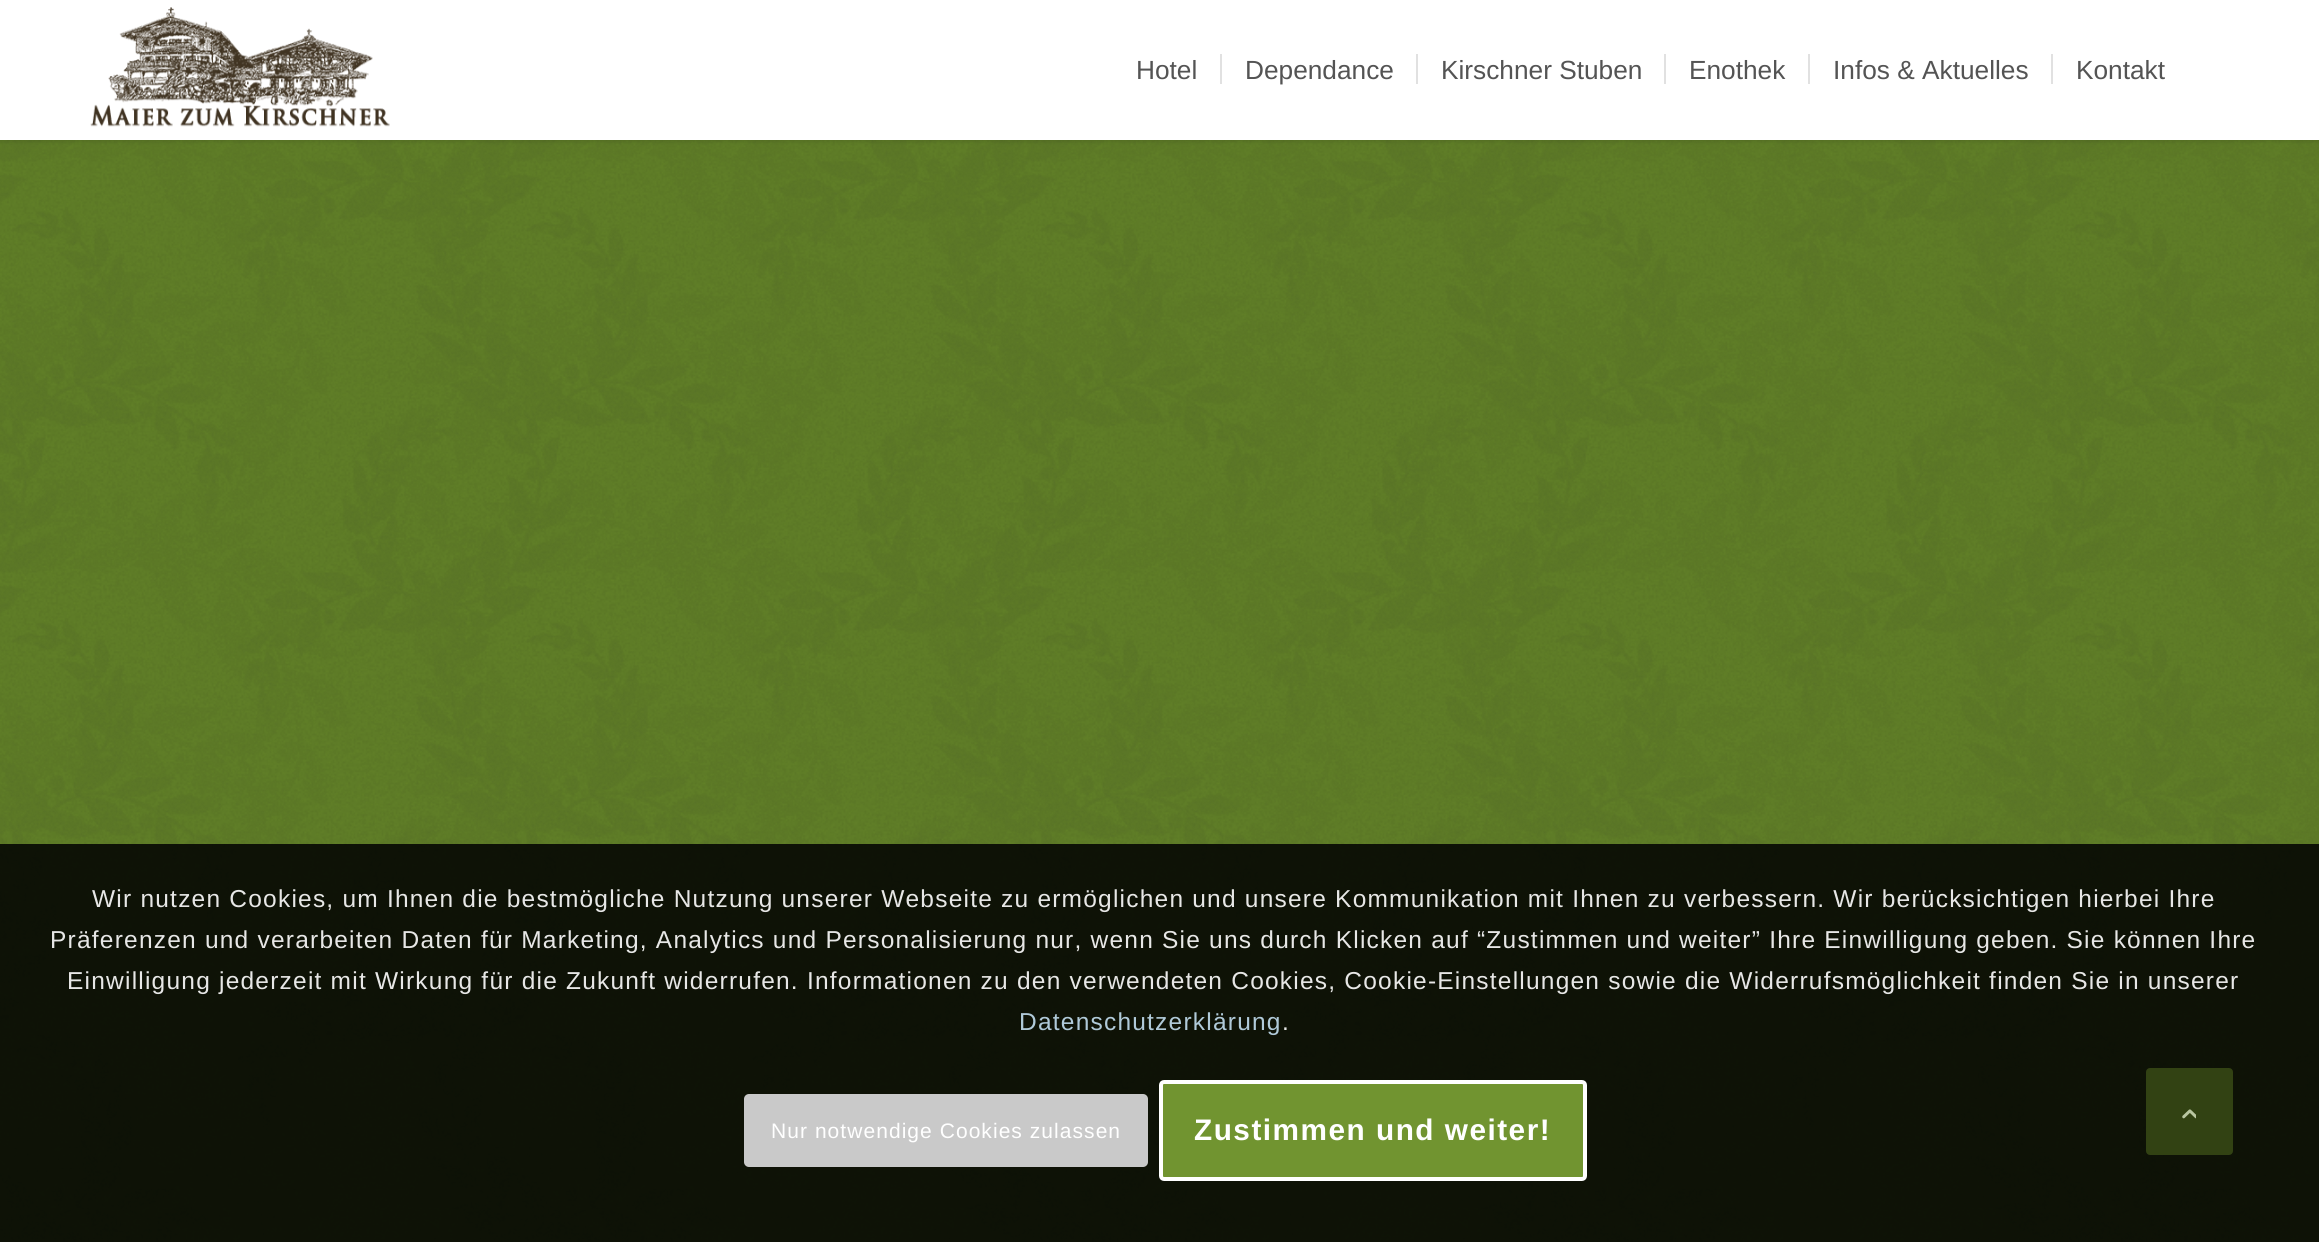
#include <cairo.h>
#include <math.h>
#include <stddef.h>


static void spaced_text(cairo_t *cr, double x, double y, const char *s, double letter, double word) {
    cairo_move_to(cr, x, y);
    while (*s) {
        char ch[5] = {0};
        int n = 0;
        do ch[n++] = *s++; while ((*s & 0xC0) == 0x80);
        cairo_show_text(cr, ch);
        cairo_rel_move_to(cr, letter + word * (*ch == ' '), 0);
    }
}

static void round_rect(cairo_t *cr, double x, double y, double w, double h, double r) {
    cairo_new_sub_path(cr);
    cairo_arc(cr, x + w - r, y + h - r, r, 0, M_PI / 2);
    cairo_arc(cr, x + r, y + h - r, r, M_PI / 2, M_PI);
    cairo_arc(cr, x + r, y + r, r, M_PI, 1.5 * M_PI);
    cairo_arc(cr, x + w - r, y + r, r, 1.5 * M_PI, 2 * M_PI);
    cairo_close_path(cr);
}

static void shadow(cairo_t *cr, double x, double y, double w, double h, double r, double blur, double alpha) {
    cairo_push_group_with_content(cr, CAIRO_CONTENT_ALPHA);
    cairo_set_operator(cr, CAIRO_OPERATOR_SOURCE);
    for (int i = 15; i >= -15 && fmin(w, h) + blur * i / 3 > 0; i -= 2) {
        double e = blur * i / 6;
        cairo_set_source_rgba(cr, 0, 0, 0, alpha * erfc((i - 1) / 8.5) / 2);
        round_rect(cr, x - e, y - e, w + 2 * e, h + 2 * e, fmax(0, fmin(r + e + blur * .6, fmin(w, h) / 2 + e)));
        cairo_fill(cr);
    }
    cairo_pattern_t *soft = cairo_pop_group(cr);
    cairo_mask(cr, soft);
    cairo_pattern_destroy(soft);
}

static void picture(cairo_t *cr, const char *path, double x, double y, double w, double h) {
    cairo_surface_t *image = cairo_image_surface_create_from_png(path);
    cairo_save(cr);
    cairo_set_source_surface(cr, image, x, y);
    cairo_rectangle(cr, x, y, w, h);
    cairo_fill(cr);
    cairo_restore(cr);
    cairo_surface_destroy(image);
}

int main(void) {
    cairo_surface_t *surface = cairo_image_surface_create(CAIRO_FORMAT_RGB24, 2319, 1242);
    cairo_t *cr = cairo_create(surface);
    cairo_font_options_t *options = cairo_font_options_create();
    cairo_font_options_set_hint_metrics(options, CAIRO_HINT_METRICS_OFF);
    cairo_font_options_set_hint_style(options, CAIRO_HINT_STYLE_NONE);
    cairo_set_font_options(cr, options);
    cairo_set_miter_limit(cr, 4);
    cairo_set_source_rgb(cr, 0.396, 0.522, 0.161);
    cairo_paint(cr);
    picture(cr, "img2.png", 0, 140, 2319, 1102);
    cairo_set_source_rgb(cr, 0, 0, 0);
    shadow(cr, -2, -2, 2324, 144, 0, 2, 0.1);
    cairo_set_source_rgb(cr, 1, 1, 1);
    cairo_rectangle(cr, 0, 0, 2319, 140);
    cairo_fill(cr);
    picture(cr, "img1.png", 90, 7, 300, 120);
    cairo_select_font_face(cr, "Liberation Sans", CAIRO_FONT_SLANT_NORMAL, CAIRO_FONT_WEIGHT_NORMAL);
    cairo_set_font_size(cr, 26.25);
    cairo_set_source_rgb(cr, 0.329, 0.329, 0.329);
    cairo_move_to(cr, 1136, 79);
    cairo_show_text(cr, "Hotel");
    cairo_move_to(cr, 1245, 79);
    cairo_show_text(cr, "Dependance");
    cairo_set_source_rgb(cr, 0.882, 0.882, 0.882);
    cairo_rectangle(cr, 1220, 54, 2, 30);
    cairo_fill(cr);
    cairo_set_source_rgb(cr, 0.329, 0.329, 0.329);
    cairo_move_to(cr, 1441, 79);
    cairo_show_text(cr, "Kirschner Stuben");
    cairo_set_source_rgb(cr, 0.882, 0.882, 0.882);
    cairo_rectangle(cr, 1416, 54, 2, 30);
    cairo_fill(cr);
    cairo_set_source_rgb(cr, 0.329, 0.329, 0.329);
    cairo_move_to(cr, 1689, 79);
    cairo_show_text(cr, "Enothek");
    cairo_set_source_rgb(cr, 0.882, 0.882, 0.882);
    cairo_rectangle(cr, 1664, 54, 2, 30);
    cairo_fill(cr);
    cairo_set_source_rgb(cr, 0.329, 0.329, 0.329);
    cairo_move_to(cr, 1833, 79);
    cairo_show_text(cr, "Infos & Aktuelles");
    cairo_set_source_rgb(cr, 0.882, 0.882, 0.882);
    cairo_rectangle(cr, 1808, 54, 2, 30);
    cairo_fill(cr);
    cairo_set_source_rgb(cr, 0.329, 0.329, 0.329);
    cairo_move_to(cr, 2076, 79);
    cairo_show_text(cr, "Kontakt");
    cairo_set_source_rgb(cr, 0.882, 0.882, 0.882);
    cairo_rectangle(cr, 2051, 54, 2, 30);
    cairo_fill(cr);
    cairo_set_source_rgba(cr, 0, 0, 0, 0.85);
    cairo_rectangle(cr, 0, 844, 2319, 398);
    cairo_fill(cr);
    cairo_set_font_size(cr, 24.5);
    cairo_set_source_rgb(cr, 0.906, 0.906, 0.902);
    spaced_text(cr, 92, 907, "Wir nutzen Cookies, um Ihnen die bestmögliche Nutzung unserer Webseite zu ermöglichen und unsere Kommunikation mit Ihnen zu verbessern. Wir berücksichtigen hierbei Ihre", 1.22, 0);
    spaced_text(cr, 50, 948, "Präferenzen und verarbeiten Daten für Marketing, Analytics und Personalisierung nur, wenn Sie uns durch Klicken auf “Zustimmen und weiter” Ihre Einwilligung geben. Sie können Ihre", 1.22, 0);
    spaced_text(cr, 67, 989, "Einwilligung jederzeit mit Wirkung für die Zukunft widerrufen. Informationen zu den verwendeten Cookies, Cookie-Einstellungen sowie die Widerrufsmöglichkeit finden Sie in unserer", 1.22, 0);
    cairo_set_source_rgb(cr, 0.69, 0.792, 0.851);
    spaced_text(cr, 1019, 1030, "Datenschutzerklärung", 1.22, 0);
    cairo_set_source_rgb(cr, 0.906, 0.906, 0.902);
    spaced_text(cr, 1282, 1030, ".", 1.22, 0);
    cairo_set_source_rgb(cr, 0.788, 0.788, 0.788);
    round_rect(cr, 744, 1094, 404, 73, 5);
    cairo_fill(cr);
    cairo_set_font_size(cr, 21);
    cairo_set_source_rgb(cr, 1, 1, 1);
    spaced_text(cr, 771, 1138, "Nur notwendige Cookies zulassen", 1.05, 0);
    cairo_set_source_rgb(cr, 0.443, 0.58, 0.188);
    round_rect(cr, 1161, 1082, 424, 97, 3);
    cairo_fill_preserve(cr);
    cairo_set_source_rgb(cr, 1, 1, 1);
    cairo_set_line_width(cr, 4);
    cairo_stroke(cr);
    cairo_select_font_face(cr, "Liberation Sans", CAIRO_FONT_SLANT_NORMAL, CAIRO_FONT_WEIGHT_BOLD);
    cairo_set_font_size(cr, 29.75);
    spaced_text(cr, 1194, 1140, "Zustimmen und weiter!", 1.5, 0);
    cairo_set_source_rgb(cr, 0.196, 0.259, 0.075);
    round_rect(cr, 2147, 1069, 85, 85, 3);
    cairo_fill_preserve(cr);
    cairo_set_line_width(cr, 2);
    cairo_stroke(cr);
    picture(cr, "img3.png", 2182, 1109, 14, 10);
    cairo_surface_write_to_png(surface, "page.png");
    cairo_font_options_destroy(options);
    cairo_destroy(cr);
    cairo_surface_destroy(surface);
    return 0;
}
